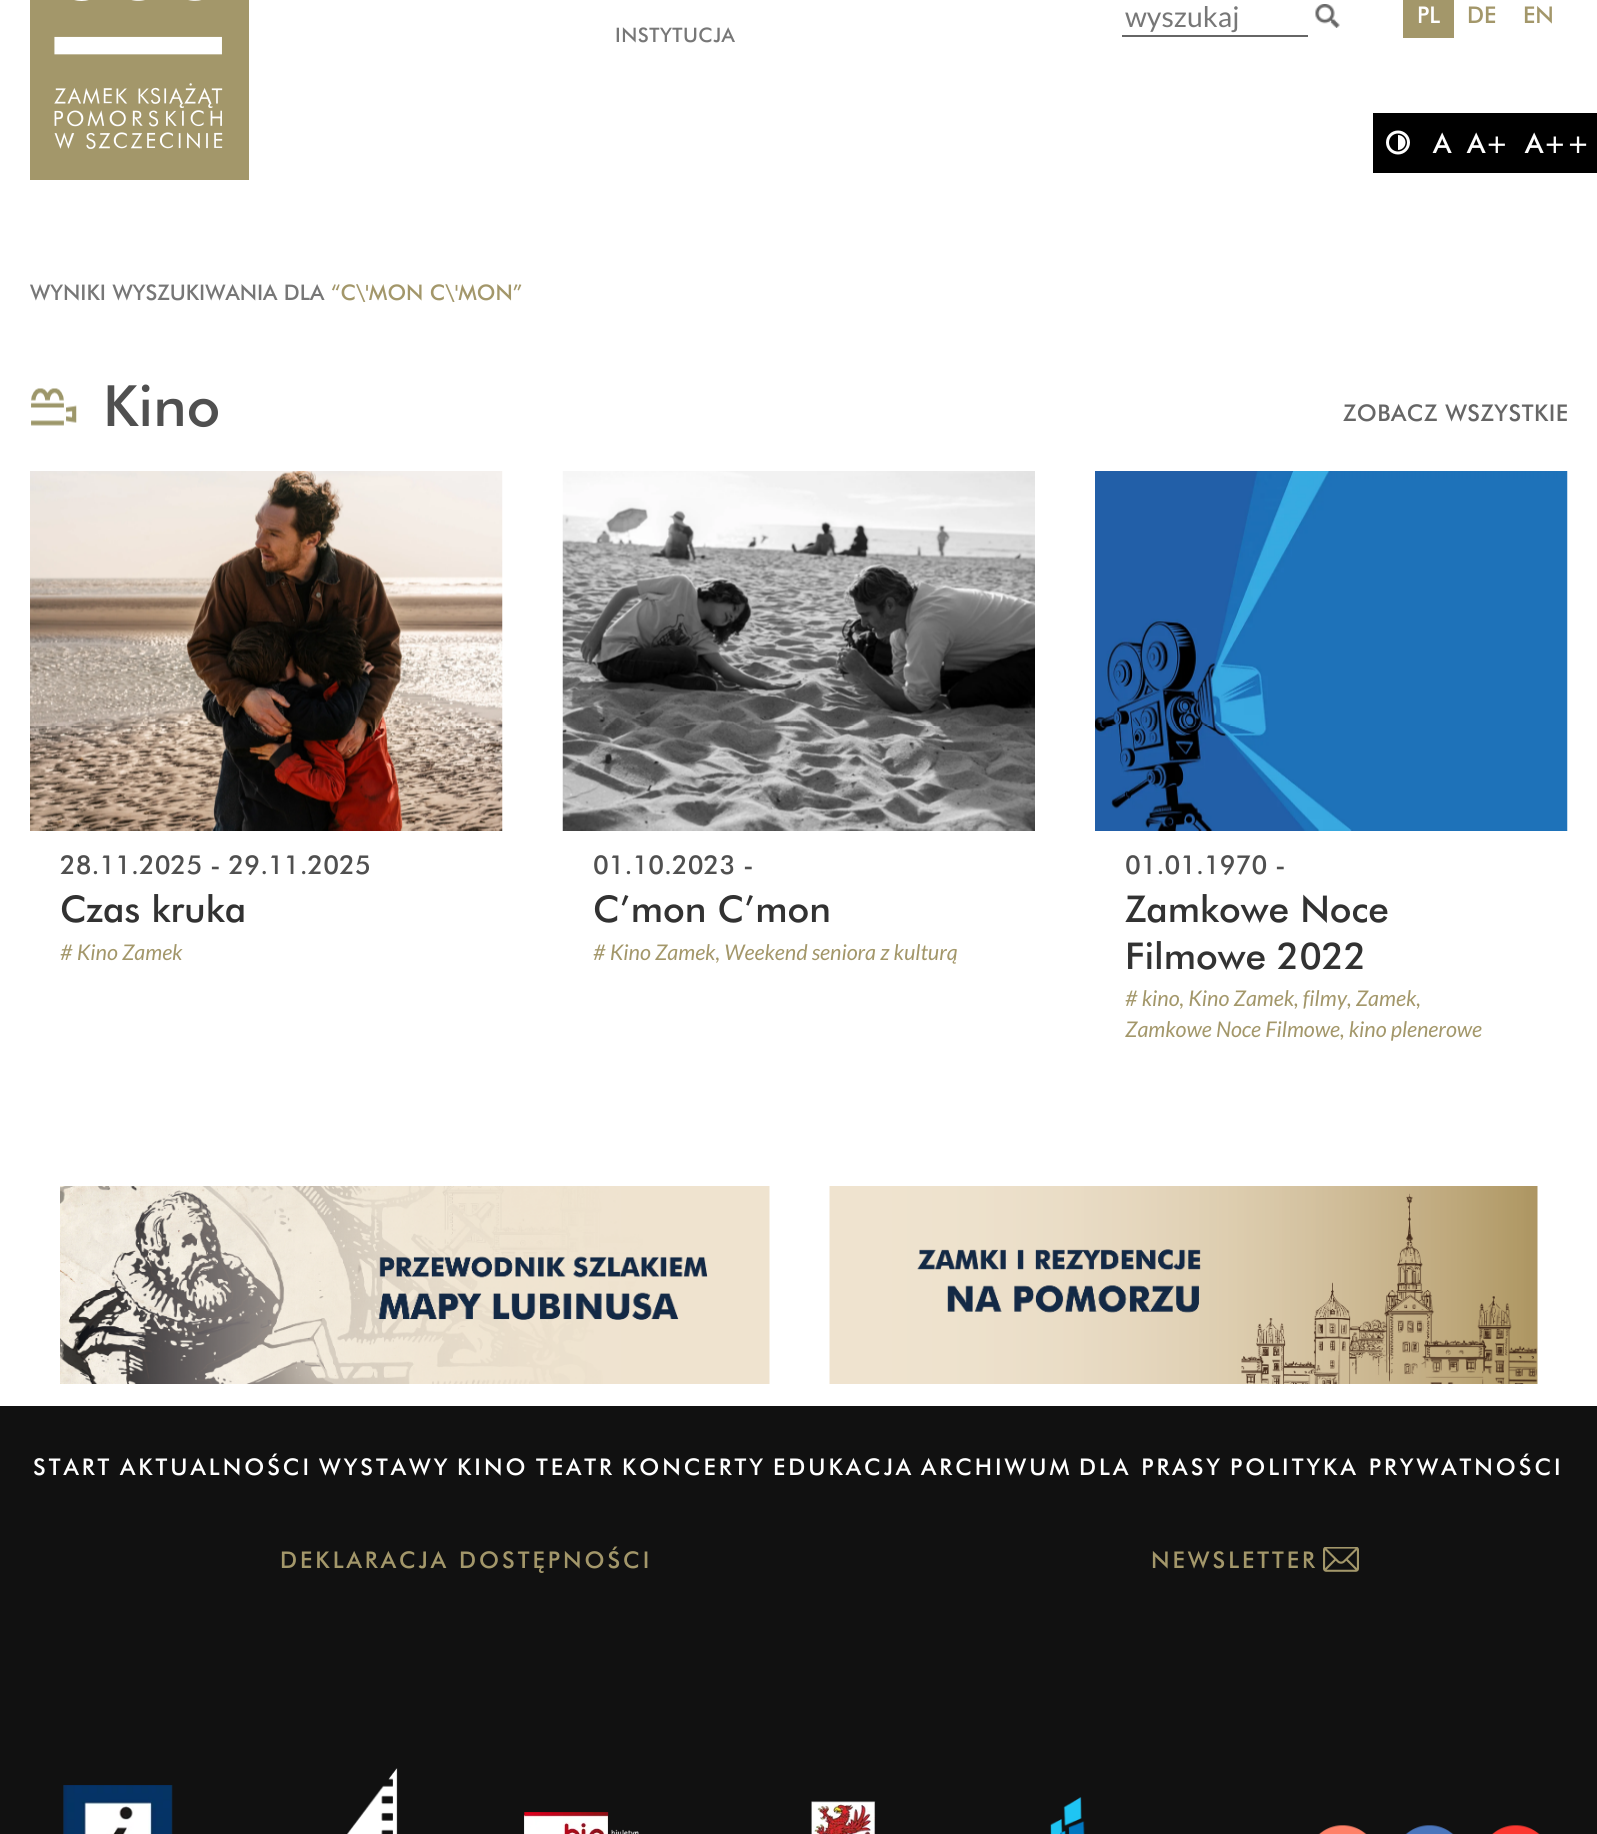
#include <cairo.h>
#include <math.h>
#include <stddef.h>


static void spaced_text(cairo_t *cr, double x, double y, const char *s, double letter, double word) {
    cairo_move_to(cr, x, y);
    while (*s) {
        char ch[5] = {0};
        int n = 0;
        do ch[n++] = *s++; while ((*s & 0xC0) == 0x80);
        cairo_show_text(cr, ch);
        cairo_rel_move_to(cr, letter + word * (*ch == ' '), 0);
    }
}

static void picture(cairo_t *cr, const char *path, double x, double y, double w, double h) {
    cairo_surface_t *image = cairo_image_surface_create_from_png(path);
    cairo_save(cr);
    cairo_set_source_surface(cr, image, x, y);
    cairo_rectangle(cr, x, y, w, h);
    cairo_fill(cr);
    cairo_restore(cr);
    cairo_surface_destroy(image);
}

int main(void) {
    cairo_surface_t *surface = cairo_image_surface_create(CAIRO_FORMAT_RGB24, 1597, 1834);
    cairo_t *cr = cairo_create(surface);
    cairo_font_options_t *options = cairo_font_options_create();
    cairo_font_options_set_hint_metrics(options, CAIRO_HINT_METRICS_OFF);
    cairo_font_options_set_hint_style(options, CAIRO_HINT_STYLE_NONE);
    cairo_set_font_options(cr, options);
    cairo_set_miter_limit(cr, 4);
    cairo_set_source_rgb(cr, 1, 1, 1);
    cairo_paint(cr);
    cairo_set_source_rgb(cr, 0.639, 0.592, 0.416);
    cairo_rectangle(cr, 1403, 0, 51, 38);
    cairo_fill(cr);
    cairo_select_font_face(cr, "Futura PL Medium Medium", CAIRO_FONT_SLANT_NORMAL, CAIRO_FONT_WEIGHT_NORMAL);
    cairo_set_font_size(cr, 22.5);
    cairo_set_source_rgb(cr, 1, 1, 1);
    cairo_move_to(cr, 1417, 23);
    cairo_show_text(cr, "PL");
    cairo_set_source_rgb(cr, 0.639, 0.592, 0.416);
    cairo_move_to(cr, 1467, 23);
    cairo_show_text(cr, "DE");
    cairo_move_to(cr, 1523, 23);
    cairo_show_text(cr, "EN");
    cairo_rectangle(cr, 30, 0, 219, 180);
    cairo_fill(cr);
    picture(cr, "img1.png", 54, 0, 169, 149);
    cairo_set_source_rgb(cr, 0.4, 0.4, 0.4);
    cairo_rectangle(cr, 1122, 35, 186, 2);
    cairo_fill(cr);
    cairo_select_font_face(cr, "Lato", CAIRO_FONT_SLANT_NORMAL, CAIRO_FONT_WEIGHT_NORMAL);
    cairo_set_font_size(cr, 28.5);
    cairo_set_source_rgb(cr, 0.467, 0.467, 0.467);
    cairo_move_to(cr, 1125, 27);
    cairo_show_text(cr, "wyszukaj");
    picture(cr, "img2.png", 1315, 4, 25, 24);
    cairo_select_font_face(cr, "Futura PL Medium Medium", CAIRO_FONT_SLANT_NORMAL, CAIRO_FONT_WEIGHT_NORMAL);
    cairo_set_font_size(cr, 19.5);
    spaced_text(cr, 615, 42, "INSTYTUCJA", 0.5, 0);
    cairo_set_source_rgb(cr, 0, 0, 0);
    cairo_rectangle(cr, 1373, 113, 224, 60);
    cairo_fill(cr);
    picture(cr, "img3.png", 1386, 130, 24, 25);
    cairo_set_font_size(cr, 27);
    cairo_set_source_rgb(cr, 1, 1, 1);
    cairo_move_to(cr, 1433, 153);
    cairo_show_text(cr, "A");
    cairo_move_to(cr, 1467, 153);
    cairo_show_text(cr, "A+");
    cairo_move_to(cr, 1525, 153);
    cairo_show_text(cr, "A++");
    cairo_set_font_size(cr, 21);
    cairo_set_source_rgb(cr, 0.467, 0.467, 0.467);
    cairo_move_to(cr, 30, 300);
    cairo_show_text(cr, "WYNIKI WYSZUKIWANIA DLA");
    cairo_set_source_rgb(cr, 0.639, 0.592, 0.416);
    cairo_move_to(cr, 331, 300);
    cairo_show_text(cr, "“C\\'MON C\\'MON”");
    picture(cr, "img4.png", 31, 388, 46, 38);
    cairo_set_font_size(cr, 55.5);
    cairo_set_source_rgb(cr, 0.314, 0.314, 0.314);
    cairo_move_to(cr, 103, 426);
    cairo_show_text(cr, "Kino");
    cairo_set_font_size(cr, 22.5);
    cairo_set_source_rgb(cr, 0.4, 0.4, 0.4);
    spaced_text(cr, 1343, 421, "ZOBACZ WSZYSTKIE", 0.5, 0);
    picture(cr, "img5.png", 30, 471, 473, 360);
    cairo_set_font_size(cr, 25.5);
    cairo_set_source_rgb(cr, 0.314, 0.314, 0.314);
    cairo_move_to(cr, 60, 874);
    cairo_show_text(cr, "28.11.2025 - 29.11.2025");
    cairo_set_font_size(cr, 36);
    cairo_set_source_rgb(cr, 0.196, 0.196, 0.196);
    cairo_move_to(cr, 60, 922);
    cairo_show_text(cr, "Czas kruka");
    cairo_select_font_face(cr, "Lato", CAIRO_FONT_SLANT_ITALIC, CAIRO_FONT_WEIGHT_NORMAL);
    cairo_set_font_size(cr, 21.6);
    cairo_set_source_rgb(cr, 0.639, 0.592, 0.416);
    cairo_move_to(cr, 60, 960);
    cairo_show_text(cr, "# Kino Zamek");
    picture(cr, "img6.png", 562, 471, 473, 360);
    cairo_select_font_face(cr, "Futura PL Medium Medium", CAIRO_FONT_SLANT_NORMAL, CAIRO_FONT_WEIGHT_NORMAL);
    cairo_set_font_size(cr, 25.5);
    cairo_set_source_rgb(cr, 0.314, 0.314, 0.314);
    cairo_move_to(cr, 593, 874);
    cairo_show_text(cr, "01.10.2023 -");
    cairo_set_font_size(cr, 36);
    cairo_set_source_rgb(cr, 0.196, 0.196, 0.196);
    cairo_move_to(cr, 593, 922);
    cairo_show_text(cr, "C’mon C’mon");
    cairo_select_font_face(cr, "Lato", CAIRO_FONT_SLANT_ITALIC, CAIRO_FONT_WEIGHT_NORMAL);
    cairo_set_font_size(cr, 21.6);
    cairo_set_source_rgb(cr, 0.639, 0.592, 0.416);
    cairo_move_to(cr, 593, 960);
    cairo_show_text(cr, "# Kino Zamek, Weekend seniora z kulturą");
    picture(cr, "img7.png", 1095, 471, 473, 360);
    cairo_select_font_face(cr, "Futura PL Medium Medium", CAIRO_FONT_SLANT_NORMAL, CAIRO_FONT_WEIGHT_NORMAL);
    cairo_set_font_size(cr, 25.5);
    cairo_set_source_rgb(cr, 0.314, 0.314, 0.314);
    cairo_move_to(cr, 1125, 874);
    cairo_show_text(cr, "01.01.1970 -");
    cairo_set_font_size(cr, 36);
    cairo_set_source_rgb(cr, 0.196, 0.196, 0.196);
    cairo_move_to(cr, 1125, 922);
    cairo_show_text(cr, "Zamkowe Noce");
    cairo_move_to(cr, 1125, 969);
    cairo_show_text(cr, "Filmowe 2022");
    cairo_select_font_face(cr, "Lato", CAIRO_FONT_SLANT_ITALIC, CAIRO_FONT_WEIGHT_NORMAL);
    cairo_set_font_size(cr, 21.6);
    cairo_set_source_rgb(cr, 0.639, 0.592, 0.416);
    cairo_move_to(cr, 1125, 1006);
    cairo_show_text(cr, "# kino, Kino Zamek, filmy, Zamek,");
    cairo_move_to(cr, 1125, 1037);
    cairo_show_text(cr, "Zamkowe Noce Filmowe, kino plenerowe");
    picture(cr, "img8.png", 60, 1186, 710, 198);
    picture(cr, "img9.png", 829, 1186, 709, 198);
    cairo_set_source_rgb(cr, 0.067, 0.067, 0.067);
    cairo_rectangle(cr, 0, 1406, 1597, 428);
    cairo_fill(cr);
    cairo_select_font_face(cr, "Futura PL Medium Medium", CAIRO_FONT_SLANT_NORMAL, CAIRO_FONT_WEIGHT_NORMAL);
    cairo_set_font_size(cr, 22.5);
    cairo_set_source_rgb(cr, 1, 1, 1);
    spaced_text(cr, 33, 1475, "START", 3, 0);
    spaced_text(cr, 120, 1475, "AKTUALNOŚCI", 3, 0);
    spaced_text(cr, 319, 1475, "WYSTAWY", 3, 0);
    spaced_text(cr, 457, 1475, "KINO", 3, 0);
    spaced_text(cr, 536, 1475, "TEATR", 3, 0);
    spaced_text(cr, 622, 1475, "KONCERTY", 3, 0);
    spaced_text(cr, 773, 1475, "EDUKACJA", 3, 0);
    spaced_text(cr, 921, 1475, "ARCHIWUM", 3, 0);
    spaced_text(cr, 1079, 1475, "DLA PRASY", 3, 0);
    spaced_text(cr, 1230, 1475, "POLITYKA PRYWATNOŚCI", 3, 0);
    cairo_set_source_rgb(cr, 0.639, 0.592, 0.416);
    spaced_text(cr, 280, 1568, "DEKLARACJA DOSTĘPNOŚCI", 3, 0);
    spaced_text(cr, 1151, 1568, "NEWSLETTER", 3, 0);
    picture(cr, "img10.png", 1323, 1547, 36, 25);
    picture(cr, "img11.png", 63, 1785, 110, 49);
    picture(cr, "img12.png", 347, 1768, 51, 66);
    picture(cr, "img13.png", 524, 1812, 115, 22);
    picture(cr, "img14.png", 811, 1801, 65, 33);
    picture(cr, "img15.png", 1050, 1797, 35, 37);
    picture(cr, "img16.png", 1318, 1825, 49, 9);
    picture(cr, "img17.png", 1405, 1825, 49, 9);
    picture(cr, "img18.png", 1492, 1825, 48, 9);
    cairo_surface_write_to_png(surface, "page.png");
    cairo_font_options_destroy(options);
    cairo_destroy(cr);
    cairo_surface_destroy(surface);
    return 0;
}
